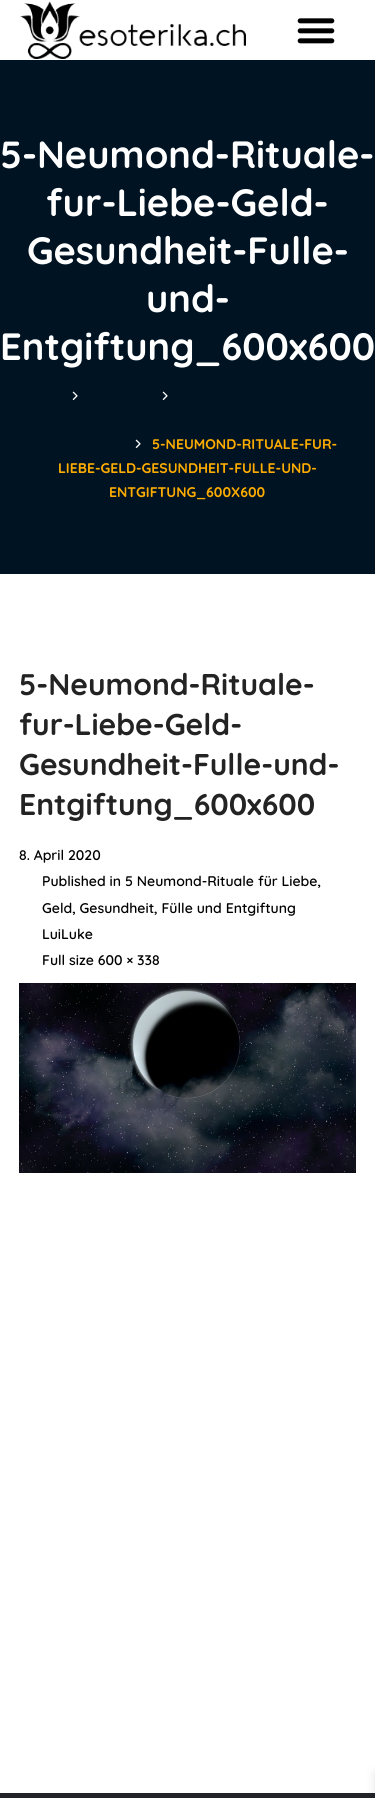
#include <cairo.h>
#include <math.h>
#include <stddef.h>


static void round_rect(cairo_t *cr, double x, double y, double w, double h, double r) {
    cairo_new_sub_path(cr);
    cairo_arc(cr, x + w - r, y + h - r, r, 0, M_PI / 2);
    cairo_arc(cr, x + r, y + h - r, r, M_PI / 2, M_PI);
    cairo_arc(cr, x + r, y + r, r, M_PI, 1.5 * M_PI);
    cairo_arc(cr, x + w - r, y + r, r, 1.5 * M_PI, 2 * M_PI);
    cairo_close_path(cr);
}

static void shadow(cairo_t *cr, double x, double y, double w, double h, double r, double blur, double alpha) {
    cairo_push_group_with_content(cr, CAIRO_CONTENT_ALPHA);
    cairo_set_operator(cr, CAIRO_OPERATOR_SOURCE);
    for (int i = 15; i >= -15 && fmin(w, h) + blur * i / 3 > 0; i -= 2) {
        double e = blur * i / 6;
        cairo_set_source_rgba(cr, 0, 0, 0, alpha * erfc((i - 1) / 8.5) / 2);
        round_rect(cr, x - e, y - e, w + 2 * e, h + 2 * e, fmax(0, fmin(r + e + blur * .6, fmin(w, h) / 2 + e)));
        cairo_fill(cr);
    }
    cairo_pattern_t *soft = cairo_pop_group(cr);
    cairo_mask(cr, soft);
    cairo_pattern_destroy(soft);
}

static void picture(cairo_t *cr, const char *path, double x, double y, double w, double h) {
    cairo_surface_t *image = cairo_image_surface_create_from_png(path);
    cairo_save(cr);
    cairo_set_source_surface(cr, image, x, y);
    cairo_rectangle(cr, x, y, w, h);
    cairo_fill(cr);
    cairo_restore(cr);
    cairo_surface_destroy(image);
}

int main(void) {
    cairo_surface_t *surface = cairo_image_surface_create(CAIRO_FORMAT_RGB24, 375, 1798);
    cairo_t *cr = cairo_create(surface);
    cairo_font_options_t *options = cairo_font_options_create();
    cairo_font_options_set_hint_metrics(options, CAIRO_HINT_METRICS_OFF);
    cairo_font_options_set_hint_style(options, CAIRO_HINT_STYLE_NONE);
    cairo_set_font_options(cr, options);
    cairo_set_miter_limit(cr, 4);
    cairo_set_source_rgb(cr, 1, 1, 1);
    cairo_paint(cr);
    picture(cr, "img1.png", 20, 1, 226, 58);
    picture(cr, "img2.png", 297, 18, 38, 26);
    cairo_set_source_rgb(cr, 0, 0.075, 0.133);
    cairo_rectangle(cr, 0, 60, 375, 514);
    cairo_fill(cr);
    cairo_select_font_face(cr, "Quicksand", CAIRO_FONT_SLANT_NORMAL, CAIRO_FONT_WEIGHT_BOLD);
    cairo_set_font_size(cr, 38);
    cairo_set_source_rgb(cr, 1, 1, 1);
    cairo_move_to(cr, 0, 168);
    cairo_show_text(cr, "5-Neumond-Rituale-");
    cairo_move_to(cr, 46, 216);
    cairo_show_text(cr, "fur-Liebe-Geld-");
    cairo_move_to(cr, 27, 264);
    cairo_show_text(cr, "Gesundheit-Fulle-");
    cairo_move_to(cr, 146, 312);
    cairo_show_text(cr, "und-");
    cairo_move_to(cr, 0, 360);
    cairo_show_text(cr, "Entgiftung_600x600");
    picture(cr, "img3.png", 72, 391, 6, 9);
    picture(cr, "img3.png", 162, 391, 6, 9);
    picture(cr, "img3.png", 135, 439, 6, 9);
    cairo_set_font_size(cr, 14);
    cairo_set_source_rgb(cr, 1, 0.675, 0);
    cairo_move_to(cr, 152, 449);
    cairo_show_text(cr, "5-NEUMOND-RITUALE-FUR-");
    cairo_move_to(cr, 58, 473);
    cairo_show_text(cr, "LIEBE-GELD-GESUNDHEIT-FULLE-UND-");
    cairo_move_to(cr, 109, 497);
    cairo_show_text(cr, "ENTGIFTUNG_600X600");
    cairo_set_font_size(cr, 30);
    cairo_set_source_rgb(cr, 0.137, 0.137, 0.137);
    cairo_move_to(cr, 19, 695);
    cairo_show_text(cr, "5-Neumond-Rituale-");
    cairo_move_to(cr, 19, 735);
    cairo_show_text(cr, "fur-Liebe-Geld-");
    cairo_move_to(cr, 19, 775);
    cairo_show_text(cr, "Gesundheit-Fulle-und-");
    cairo_move_to(cr, 19, 815);
    cairo_show_text(cr, "Entgiftung_600x600");
    cairo_select_font_face(cr, "Quicksand SemiBold", CAIRO_FONT_SLANT_NORMAL, CAIRO_FONT_WEIGHT_NORMAL);
    cairo_set_font_size(cr, 14);
    cairo_set_source_rgb(cr, 0, 0, 0);
    cairo_move_to(cr, 19, 860);
    cairo_show_text(cr, "8. April 2020");
    cairo_move_to(cr, 42, 886);
    cairo_show_text(cr, "Published in 5 Neumond-Rituale für Liebe,");
    cairo_move_to(cr, 42, 913);
    cairo_show_text(cr, "Geld, Gesundheit, Fülle und Entgiftung");
    cairo_move_to(cr, 42, 939);
    cairo_show_text(cr, "LuiLuke");
    cairo_move_to(cr, 42, 965);
    cairo_show_text(cr, "Full size 600 × 338");
    picture(cr, "img4.png", 19, 983, 337, 190);
    cairo_set_source_rgb(cr, 0.133, 0.137, 0.157);
    cairo_rectangle(cr, 0, 1793, 375, 5);
    cairo_fill(cr);
    cairo_set_source_rgb(cr, 0, 0, 0);
    shadow(cr, 375, 1773, 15, 20, 0, 5, 0.1);
    cairo_surface_write_to_png(surface, "page.png");
    cairo_font_options_destroy(options);
    cairo_destroy(cr);
    cairo_surface_destroy(surface);
    return 0;
}
